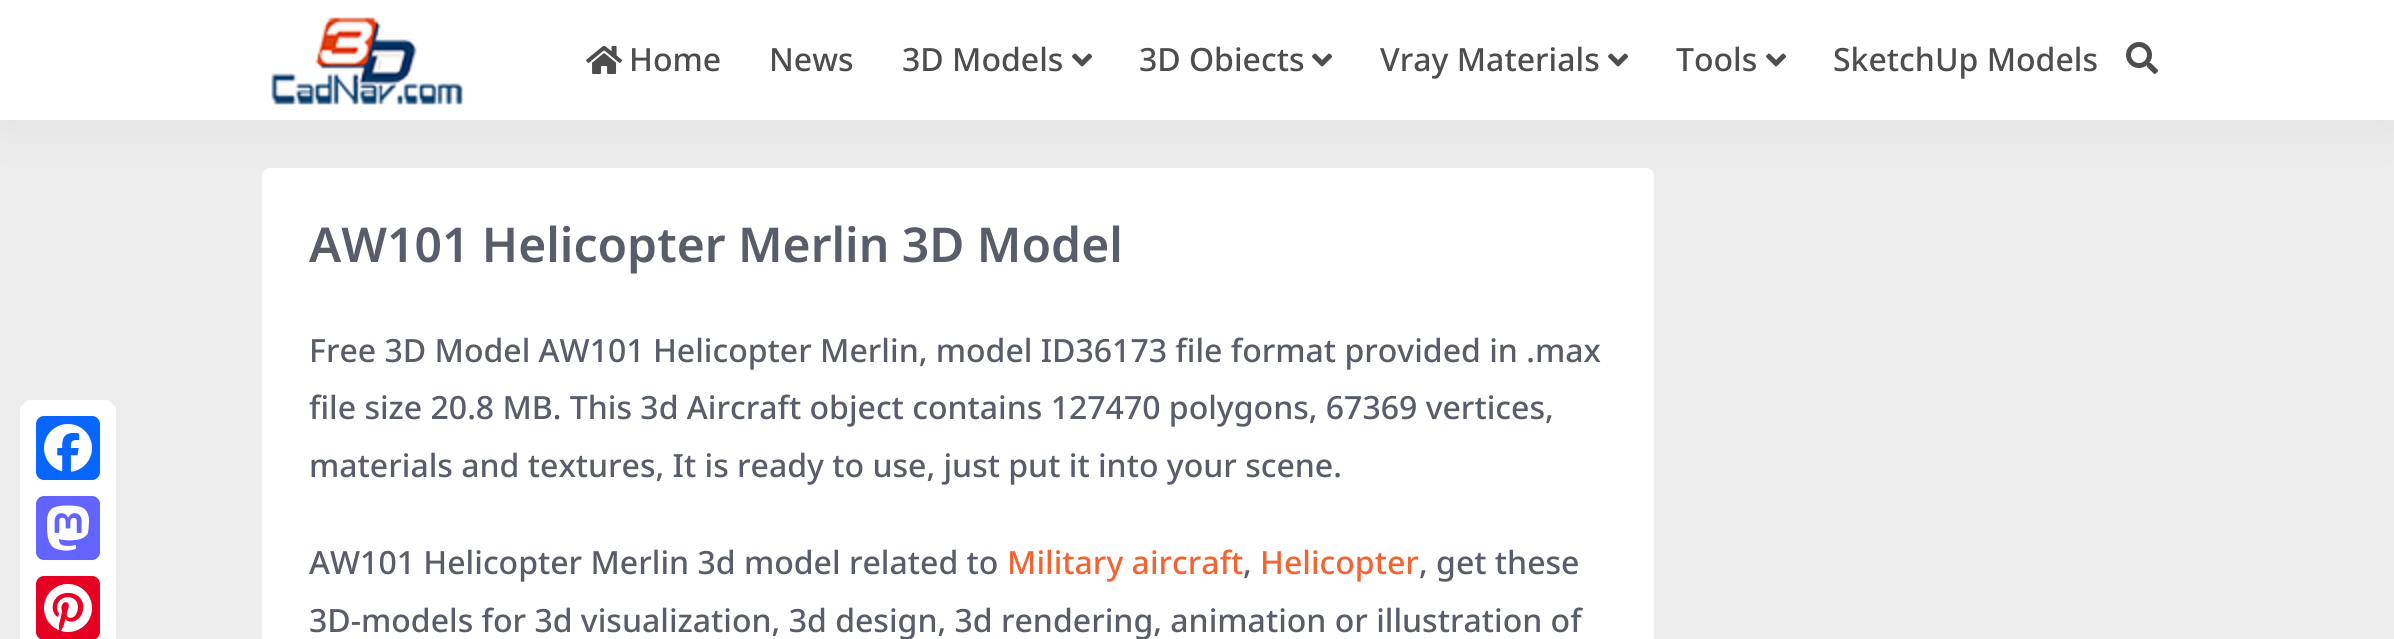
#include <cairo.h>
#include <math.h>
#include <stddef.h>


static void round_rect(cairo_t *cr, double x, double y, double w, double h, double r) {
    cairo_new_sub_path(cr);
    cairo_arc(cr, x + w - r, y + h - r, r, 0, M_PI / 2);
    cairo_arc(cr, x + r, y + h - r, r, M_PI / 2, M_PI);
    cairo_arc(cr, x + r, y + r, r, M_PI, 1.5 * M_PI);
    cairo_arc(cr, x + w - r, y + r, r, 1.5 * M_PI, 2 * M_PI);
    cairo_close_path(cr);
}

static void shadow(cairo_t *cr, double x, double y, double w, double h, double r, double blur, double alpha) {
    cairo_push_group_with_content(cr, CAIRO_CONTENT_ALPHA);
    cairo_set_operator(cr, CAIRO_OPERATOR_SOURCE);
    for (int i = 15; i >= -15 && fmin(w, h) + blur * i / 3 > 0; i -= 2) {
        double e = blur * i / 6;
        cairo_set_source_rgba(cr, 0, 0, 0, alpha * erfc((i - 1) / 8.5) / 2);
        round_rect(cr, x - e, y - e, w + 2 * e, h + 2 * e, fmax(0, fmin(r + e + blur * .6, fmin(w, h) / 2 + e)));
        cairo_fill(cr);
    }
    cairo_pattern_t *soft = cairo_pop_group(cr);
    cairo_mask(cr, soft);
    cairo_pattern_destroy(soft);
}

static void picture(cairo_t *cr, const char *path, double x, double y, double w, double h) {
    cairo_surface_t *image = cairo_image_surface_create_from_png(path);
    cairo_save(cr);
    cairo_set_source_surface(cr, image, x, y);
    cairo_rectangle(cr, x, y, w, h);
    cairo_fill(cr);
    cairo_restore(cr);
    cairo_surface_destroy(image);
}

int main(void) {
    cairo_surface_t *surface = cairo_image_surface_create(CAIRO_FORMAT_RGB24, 2394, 639);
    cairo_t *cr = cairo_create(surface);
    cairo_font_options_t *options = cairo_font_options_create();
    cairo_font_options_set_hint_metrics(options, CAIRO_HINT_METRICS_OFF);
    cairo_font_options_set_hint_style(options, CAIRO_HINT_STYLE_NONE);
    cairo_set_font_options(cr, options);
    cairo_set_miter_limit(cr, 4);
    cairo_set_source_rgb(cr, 0.929, 0.929, 0.929);
    cairo_paint(cr);
    cairo_set_source_rgb(cr, 1, 1, 1);
    round_rect(cr, 262, 168, 1392, 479, 8);
    cairo_fill(cr);
    cairo_set_source_rgb(cr, 0, 0, 0);
    shadow(cr, 0, 0, 2394, 120, 0, 30, 0.07);
    cairo_set_source_rgb(cr, 1, 1, 1);
    cairo_rectangle(cr, 0, 0, 2394, 120);
    cairo_fill(cr);
    picture(cr, "img1.png", 271, 17, 192, 88);
    picture(cr, "img2.png", 586, 46, 36, 28);
    cairo_select_font_face(cr, "Noto Sans Medium", CAIRO_FONT_SLANT_NORMAL, CAIRO_FONT_WEIGHT_NORMAL);
    cairo_set_font_size(cr, 32);
    cairo_set_source_rgb(cr, 0.302, 0.302, 0.302);
    cairo_move_to(cr, 629, 71);
    cairo_show_text(cr, "Home");
    cairo_move_to(cr, 769, 71);
    cairo_show_text(cr, "News");
    cairo_move_to(cr, 902, 71);
    cairo_show_text(cr, "3D Models");
    picture(cr, "img3.png", 1072, 53, 20, 14);
    cairo_move_to(cr, 1139, 71);
    cairo_show_text(cr, "3D Obiects");
    picture(cr, "img3.png", 1312, 53, 20, 14);
    cairo_move_to(cr, 1380, 71);
    cairo_show_text(cr, "Vray Materials");
    picture(cr, "img3.png", 1608, 53, 20, 14);
    cairo_move_to(cr, 1676, 71);
    cairo_show_text(cr, "Tools");
    picture(cr, "img3.png", 1766, 53, 20, 14);
    cairo_move_to(cr, 1833, 71);
    cairo_show_text(cr, "SketchUp Models");
    picture(cr, "img4.png", 2126, 42, 32, 32);
    cairo_set_source_rgb(cr, 1, 1, 1);
    round_rect(cr, 20, 400, 96, 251, 12);
    cairo_fill(cr);
    cairo_set_source_rgb(cr, 0.031, 0.4, 1);
    round_rect(cr, 36, 416, 64, 64, 8);
    cairo_fill(cr);
    picture(cr, "img5.png", 44, 424, 48, 48);
    cairo_set_source_rgb(cr, 0.388, 0.392, 1);
    round_rect(cr, 36, 496, 64, 64, 8);
    cairo_fill(cr);
    picture(cr, "img6.png", 47, 505, 42, 46);
    cairo_set_source_rgb(cr, 0.902, 0, 0.137);
    round_rect(cr, 36, 576, 64, 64, 8);
    cairo_fill(cr);
    picture(cr, "img7.png", 44, 584, 48, 48);
    cairo_select_font_face(cr, "Noto Sans SemiBold", CAIRO_FONT_SLANT_NORMAL, CAIRO_FONT_WEIGHT_NORMAL);
    cairo_set_font_size(cr, 48);
    cairo_set_source_rgb(cr, 0.349, 0.365, 0.412);
    cairo_move_to(cr, 309, 262);
    cairo_show_text(cr, "AW101 Helicopter Merlin 3D Model");
    cairo_select_font_face(cr, "Noto Sans Medium", CAIRO_FONT_SLANT_NORMAL, CAIRO_FONT_WEIGHT_NORMAL);
    cairo_set_font_size(cr, 32);
    cairo_move_to(cr, 309, 362);
    cairo_show_text(cr, "Free 3D Model AW101 Helicopter Merlin, model ID36173 file format provided in .max");
    cairo_move_to(cr, 309, 419);
    cairo_show_text(cr, "file size 20.8 MB. This 3d Aircraft object contains 127470 polygons, 67369 vertices,");
    cairo_move_to(cr, 309, 477);
    cairo_show_text(cr, "materials and textures, It is ready to use, just put it into your scene.");
    cairo_move_to(cr, 309, 574);
    cairo_show_text(cr, "AW101 Helicopter Merlin 3d model related to");
    cairo_set_source_rgb(cr, 0.949, 0.396, 0.196);
    cairo_move_to(cr, 1007, 574);
    cairo_show_text(cr, "Military aircraft");
    cairo_set_source_rgb(cr, 0.349, 0.365, 0.412);
    cairo_move_to(cr, 1243, 574);
    cairo_show_text(cr, ",");
    cairo_set_source_rgb(cr, 0.949, 0.396, 0.196);
    cairo_move_to(cr, 1260, 574);
    cairo_show_text(cr, "Helicopter");
    cairo_set_source_rgb(cr, 0.349, 0.365, 0.412);
    cairo_move_to(cr, 1419, 574);
    cairo_show_text(cr, ", get these");
    cairo_move_to(cr, 309, 632);
    cairo_show_text(cr, "3D-models for 3d visualization, 3d design, 3d rendering, animation or illustration of");
    cairo_surface_write_to_png(surface, "page.png");
    cairo_font_options_destroy(options);
    cairo_destroy(cr);
    cairo_surface_destroy(surface);
    return 0;
}
